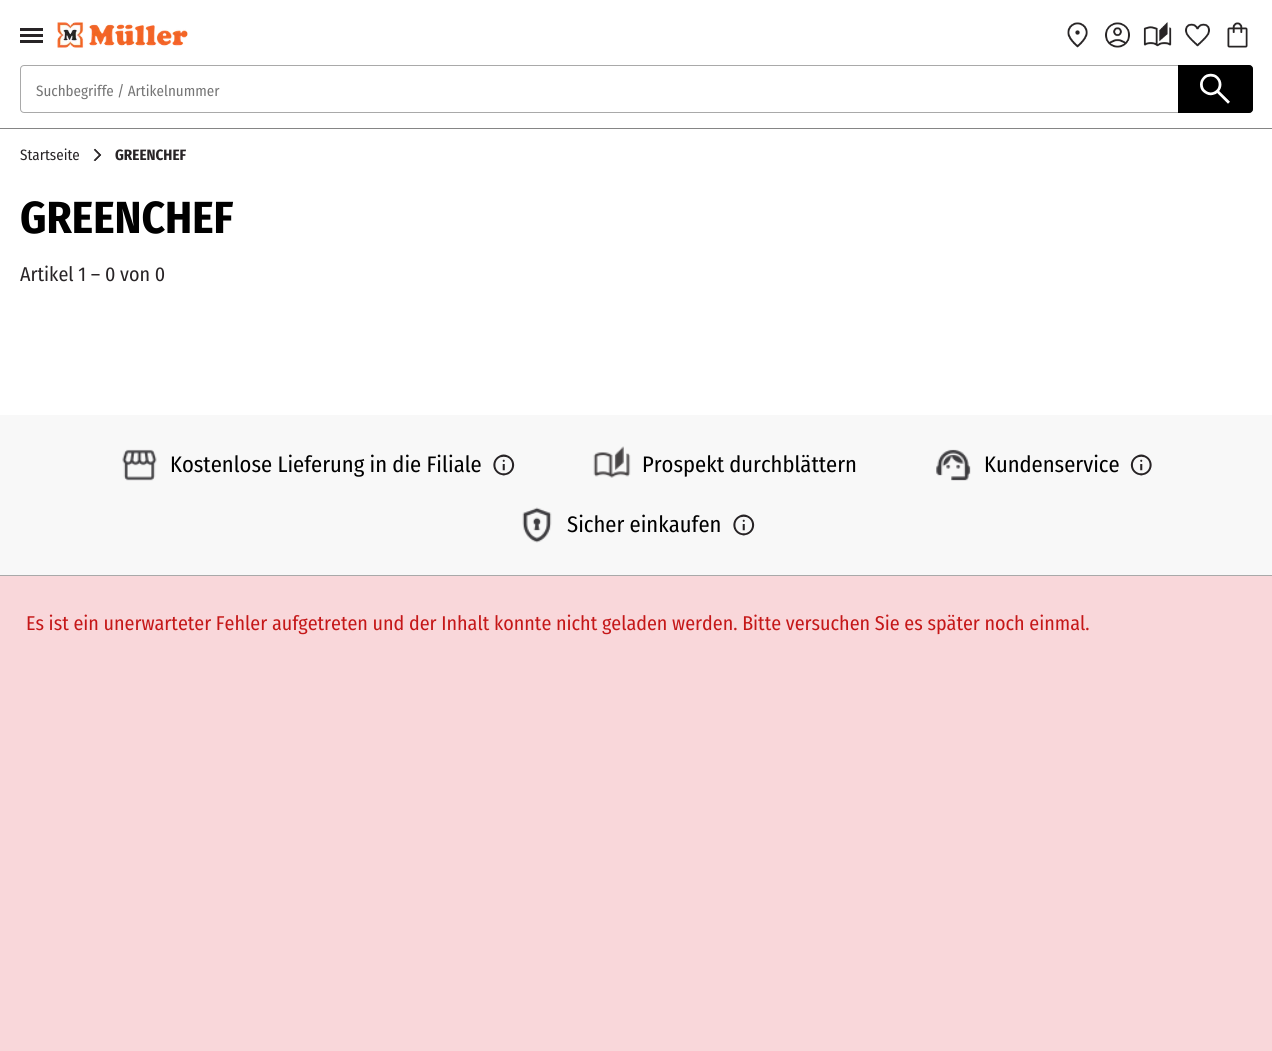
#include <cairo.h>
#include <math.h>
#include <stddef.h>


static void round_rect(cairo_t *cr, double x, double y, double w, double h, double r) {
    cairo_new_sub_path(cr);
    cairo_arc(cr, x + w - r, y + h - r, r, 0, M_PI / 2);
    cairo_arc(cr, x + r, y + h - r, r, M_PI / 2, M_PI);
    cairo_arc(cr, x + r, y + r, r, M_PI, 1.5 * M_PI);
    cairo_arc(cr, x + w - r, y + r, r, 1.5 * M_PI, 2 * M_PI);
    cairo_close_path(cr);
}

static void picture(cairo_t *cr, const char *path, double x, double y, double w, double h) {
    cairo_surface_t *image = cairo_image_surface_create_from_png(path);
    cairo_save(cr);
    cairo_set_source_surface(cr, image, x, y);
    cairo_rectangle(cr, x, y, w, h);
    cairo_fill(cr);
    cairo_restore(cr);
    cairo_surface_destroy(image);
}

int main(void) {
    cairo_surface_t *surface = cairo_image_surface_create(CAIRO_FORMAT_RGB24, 1272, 1051);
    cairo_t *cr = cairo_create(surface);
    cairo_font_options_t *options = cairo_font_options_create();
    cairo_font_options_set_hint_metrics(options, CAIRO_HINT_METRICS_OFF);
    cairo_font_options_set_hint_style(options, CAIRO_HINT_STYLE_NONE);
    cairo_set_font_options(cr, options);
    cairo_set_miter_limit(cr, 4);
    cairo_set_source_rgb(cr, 1, 1, 1);
    cairo_paint(cr);
    cairo_set_source_rgb(cr, 0.522, 0.522, 0.522);
    cairo_rectangle(cr, 0, 128, 1272, 1);
    cairo_fill(cr);
    cairo_set_source_rgb(cr, 0.157, 0.141, 0.149);
    cairo_rectangle(cr, 20, 28, 23, 3);
    cairo_fill(cr);
    cairo_rectangle(cr, 20, 40, 23, 3);
    cairo_fill(cr);
    cairo_rectangle(cr, 20, 34, 23, 3);
    cairo_fill(cr);
    picture(cr, "img1.png", 57, 22, 131, 26);
    picture(cr, "img2.png", 1067, 22, 21, 26);
    picture(cr, "img3.png", 1105, 22, 25, 26);
    picture(cr, "img4.png", 1143, 22, 29, 25);
    picture(cr, "img5.png", 1185, 23, 25, 24);
    picture(cr, "img6.png", 1227, 22, 21, 26);
    round_rect(cr, 20.5, 65.5, 1232, 47, 3.5);
    cairo_set_source_rgb(cr, 0.663, 0.663, 0.663);
    cairo_set_line_width(cr, 1);
    cairo_stroke(cr);
    cairo_select_font_face(cr, "Fira Sans Condensed", CAIRO_FONT_SLANT_NORMAL, CAIRO_FONT_WEIGHT_NORMAL);
    cairo_set_font_size(cr, 15);
    cairo_set_source_rgb(cr, 0.459, 0.459, 0.459);
    cairo_move_to(cr, 36, 96);
    cairo_show_text(cr, "Suchbegriffe / Artikelnummer");
    cairo_set_source_rgb(cr, 0, 0, 0);
    cairo_new_path(cr);
    cairo_move_to(cr, 1178.5, 65.5);
    cairo_line_to(cr, 1249, 65.5);
    cairo_curve_to(cr, 1251, 65.5, 1252.5, 67, 1252.5, 69);
    cairo_line_to(cr, 1252.5, 109);
    cairo_curve_to(cr, 1252.5, 111, 1251, 112.5, 1249, 112.5);
    cairo_line_to(cr, 1178.5, 112.5);
    cairo_close_path(cr);
    cairo_fill_preserve(cr);
    cairo_stroke(cr);
    picture(cr, "img7.png", 1200, 73, 30, 31);
    cairo_set_source_rgb(cr, 0.157, 0.141, 0.149);
    cairo_move_to(cr, 20, 160);
    cairo_show_text(cr, "Startseite");
    picture(cr, "img8.png", 93, 148, 9, 13);
    cairo_select_font_face(cr, "Fira Sans Condensed", CAIRO_FONT_SLANT_NORMAL, CAIRO_FONT_WEIGHT_BOLD);
    cairo_move_to(cr, 115, 160);
    cairo_show_text(cr, "GREENCHEF");
    cairo_set_font_size(cr, 45);
    cairo_set_source_rgb(cr, 0, 0, 0);
    cairo_move_to(cr, 20, 233);
    cairo_show_text(cr, "GREENCHEF");
    cairo_select_font_face(cr, "Fira Sans Condensed", CAIRO_FONT_SLANT_NORMAL, CAIRO_FONT_WEIGHT_NORMAL);
    cairo_set_font_size(cr, 20);
    cairo_set_source_rgb(cr, 0.157, 0.141, 0.149);
    cairo_move_to(cr, 20, 281);
    cairo_show_text(cr, "Artikel 1 – 0 von 0");
    cairo_set_source_rgb(cr, 0.969, 0.969, 0.969);
    cairo_rectangle(cr, 0, 415, 1272, 160);
    cairo_fill(cr);
    cairo_set_source_rgb(cr, 0.663, 0.663, 0.663);
    cairo_rectangle(cr, 0, 575, 1272, 1);
    cairo_fill(cr);
    picture(cr, "img9.png", 122, 449, 35, 32);
    cairo_set_font_size(cr, 22.5);
    cairo_set_source_rgb(cr, 0, 0, 0);
    cairo_move_to(cr, 170, 472);
    cairo_show_text(cr, "Kostenlose Lieferung in die Filiale");
    picture(cr, "img10.png", 493, 454, 22, 22);
    picture(cr, "img11.png", 593, 446, 38, 32);
    cairo_move_to(cr, 642, 472);
    cairo_show_text(cr, "Prospekt durchblättern");
    picture(cr, "img12.png", 936, 449, 35, 32);
    cairo_move_to(cr, 984, 472);
    cairo_show_text(cr, "Kundenservice");
    picture(cr, "img13.png", 1130, 454, 22, 22);
    picture(cr, "img14.png", 522, 507, 30, 36);
    cairo_move_to(cr, 567, 532);
    cairo_show_text(cr, "Sicher einkaufen");
    picture(cr, "img15.png", 733, 514, 22, 22);
    cairo_set_source_rgb(cr, 0.973, 0.843, 0.855);
    cairo_rectangle(cr, 0, 576, 1272, 475);
    cairo_fill(cr);
    cairo_set_font_size(cr, 20);
    cairo_set_source_rgb(cr, 0.773, 0.09, 0.094);
    cairo_move_to(cr, 26, 630);
    cairo_show_text(cr, "Es ist ein unerwarteter Fehler aufgetreten und der Inhalt konnte nicht geladen werden. Bitte versuchen Sie es später noch einmal.");
    cairo_surface_write_to_png(surface, "page.png");
    cairo_font_options_destroy(options);
    cairo_destroy(cr);
    cairo_surface_destroy(surface);
    return 0;
}
